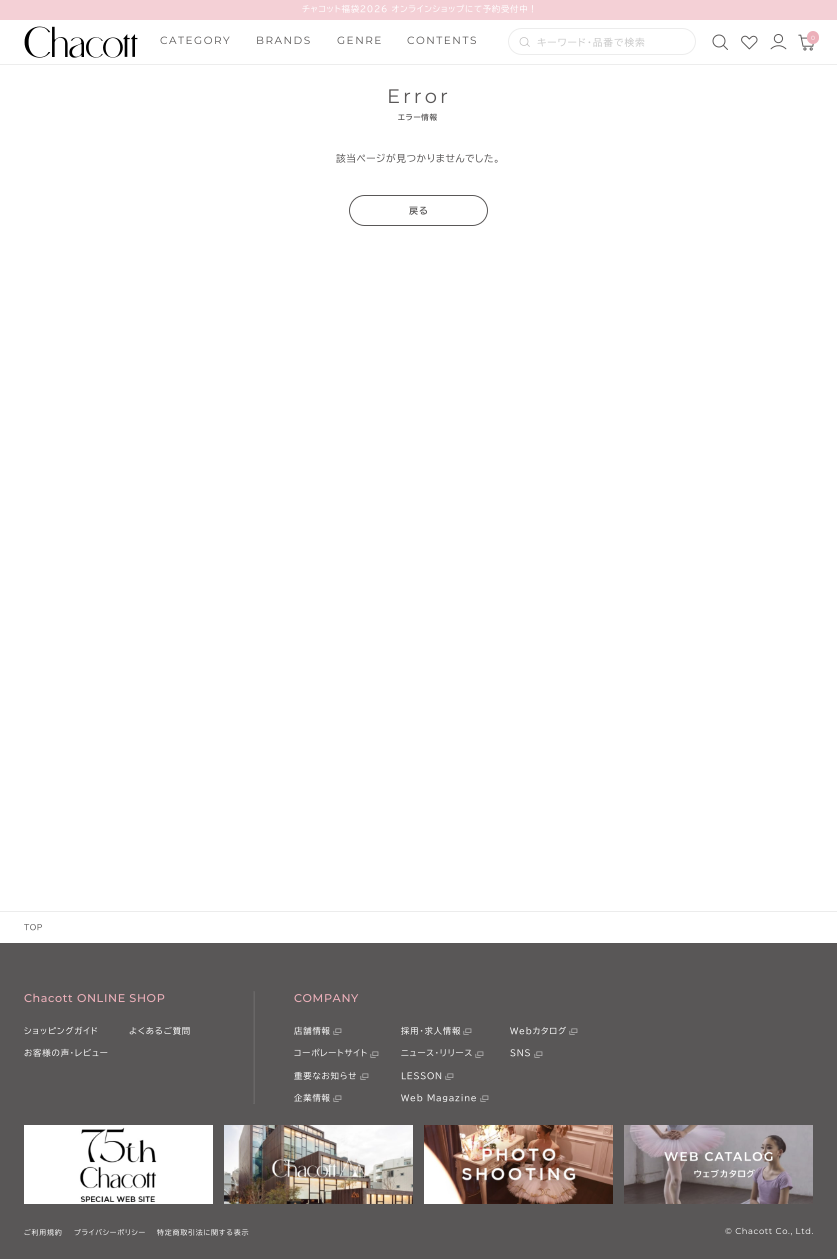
#include <cairo.h>
#include <math.h>
#include <stddef.h>


static void spaced_text(cairo_t *cr, double x, double y, const char *s, double letter, double word) {
    cairo_move_to(cr, x, y);
    while (*s) {
        char ch[5] = {0};
        int n = 0;
        do ch[n++] = *s++; while ((*s & 0xC0) == 0x80);
        cairo_show_text(cr, ch);
        cairo_rel_move_to(cr, letter + word * (*ch == ' '), 0);
    }
}

static void round_rect(cairo_t *cr, double x, double y, double w, double h, double r) {
    cairo_new_sub_path(cr);
    cairo_arc(cr, x + w - r, y + h - r, r, 0, M_PI / 2);
    cairo_arc(cr, x + r, y + h - r, r, M_PI / 2, M_PI);
    cairo_arc(cr, x + r, y + r, r, M_PI, 1.5 * M_PI);
    cairo_arc(cr, x + w - r, y + r, r, 1.5 * M_PI, 2 * M_PI);
    cairo_close_path(cr);
}

static void picture(cairo_t *cr, const char *path, double x, double y, double w, double h) {
    cairo_surface_t *image = cairo_image_surface_create_from_png(path);
    cairo_save(cr);
    cairo_set_source_surface(cr, image, x, y);
    cairo_rectangle(cr, x, y, w, h);
    cairo_fill(cr);
    cairo_restore(cr);
    cairo_surface_destroy(image);
}

int main(void) {
    cairo_surface_t *surface = cairo_image_surface_create(CAIRO_FORMAT_RGB24, 837, 1259);
    cairo_t *cr = cairo_create(surface);
    cairo_font_options_t *options = cairo_font_options_create();
    cairo_font_options_set_hint_metrics(options, CAIRO_HINT_METRICS_OFF);
    cairo_font_options_set_hint_style(options, CAIRO_HINT_STYLE_NONE);
    cairo_set_font_options(cr, options);
    cairo_set_miter_limit(cr, 4);
    cairo_set_source_rgb(cr, 1, 1, 1);
    cairo_paint(cr);
    cairo_set_source_rgb(cr, 0.957, 0.816, 0.839);
    cairo_rectangle(cr, 0, 0, 837, 20);
    cairo_fill(cr);
    cairo_select_font_face(cr, "BIZ UDPGothic", CAIRO_FONT_SLANT_NORMAL, CAIRO_FONT_WEIGHT_NORMAL);
    cairo_set_font_size(cr, 8.4);
    cairo_set_source_rgb(cr, 1, 1, 1);
    spaced_text(cr, 302, 12, "チャコット福袋2026 オンラインショップにて予約受付中！", 0.7, 0);
    cairo_set_source_rgb(cr, 0.929, 0.929, 0.929);
    cairo_rectangle(cr, 0, 64, 837, 1);
    cairo_fill(cr);
    picture(cr, "img1.png", 24, 26, 114, 32);
    cairo_select_font_face(cr, "Montserrat", CAIRO_FONT_SLANT_NORMAL, CAIRO_FONT_WEIGHT_NORMAL);
    cairo_set_font_size(cr, 10.5);
    cairo_set_source_rgb(cr, 0.349, 0.341, 0.341);
    spaced_text(cr, 160, 44, "CATEGORY", 1.5, 0);
    spaced_text(cr, 256, 44, "BRANDS", 1.5, 0);
    spaced_text(cr, 337, 44, "GENRE", 1.5, 0);
    spaced_text(cr, 407, 44, "CONTENTS", 1.5, 0);
    round_rect(cr, 508.5, 28.5, 187, 26, 13);
    cairo_set_source_rgb(cr, 0.922, 0.922, 0.922);
    cairo_set_line_width(cr, 1);
    cairo_stroke(cr);
    cairo_arc(cr, 524, 41.5, 4, 0, 2 * M_PI);
    cairo_set_source_rgb(cr, 0.741, 0.737, 0.737);
    cairo_set_line_width(cr, 0.7);
    cairo_stroke(cr);
    cairo_new_path(cr);
    cairo_move_to(cr, 527, 44);
    cairo_line_to(cr, 529.5, 46.5);
    cairo_set_line_cap(cr, CAIRO_LINE_CAP_ROUND);
    cairo_stroke(cr);
    cairo_select_font_face(cr, "BIZ UDPGothic", CAIRO_FONT_SLANT_NORMAL, CAIRO_FONT_WEIGHT_NORMAL);
    cairo_set_font_size(cr, 9.75);
    cairo_set_source_rgb(cr, 0.784, 0.784, 0.784);
    spaced_text(cr, 537, 46, "キーワード・品番で検索", 0.9, 0);
    cairo_new_path(cr);
    cairo_arc(cr, 719, 41, 6, 0, 2 * M_PI);
    cairo_set_source_rgb(cr, 0.349, 0.341, 0.341);
    cairo_set_line_width(cr, 1);
    cairo_set_line_cap(cr, CAIRO_LINE_CAP_BUTT);
    cairo_stroke(cr);
    cairo_new_path(cr);
    cairo_move_to(cr, 723.5, 45.5);
    cairo_line_to(cr, 727.5, 49.5);
    cairo_set_line_cap(cr, CAIRO_LINE_CAP_ROUND);
    cairo_stroke(cr);
    picture(cr, "img2.png", 741, 35, 17, 15);
    picture(cr, "img3.png", 770, 34, 17, 16);
    picture(cr, "img4.png", 798, 34, 16, 17);
    cairo_set_source_rgb(cr, 0.925, 0.69, 0.729);
    round_rect(cr, 807, 31, 12, 13, 6);
    cairo_fill(cr);
    cairo_select_font_face(cr, "Montserrat", CAIRO_FONT_SLANT_NORMAL, CAIRO_FONT_WEIGHT_NORMAL);
    cairo_set_font_size(cr, 6);
    cairo_set_source_rgb(cr, 1, 1, 1);
    cairo_move_to(cr, 811, 40);
    cairo_show_text(cr, "0");
    cairo_set_font_size(cr, 19.5);
    cairo_set_source_rgb(cr, 0.349, 0.341, 0.341);
    spaced_text(cr, 387, 103, "Error", 3, 0);
    cairo_select_font_face(cr, "BIZ UDPGothic", CAIRO_FONT_SLANT_NORMAL, CAIRO_FONT_WEIGHT_BOLD);
    cairo_set_font_size(cr, 7.5);
    spaced_text(cr, 398, 120, "エラー情報", 0.75, 0);
    cairo_select_font_face(cr, "BIZ UDPGothic", CAIRO_FONT_SLANT_NORMAL, CAIRO_FONT_WEIGHT_NORMAL);
    cairo_set_font_size(cr, 9.75);
    spaced_text(cr, 336, 162, "該当ページが見つかりませんでした。", 0.5, 0);
    round_rect(cr, 349.5, 195.5, 138, 30, 15);
    cairo_set_line_cap(cr, CAIRO_LINE_CAP_BUTT);
    cairo_stroke(cr);
    cairo_select_font_face(cr, "BIZ UDPGothic", CAIRO_FONT_SLANT_NORMAL, CAIRO_FONT_WEIGHT_BOLD);
    cairo_set_font_size(cr, 9);
    spaced_text(cr, 409, 214, "戻る", 1, 0);
    cairo_set_source_rgb(cr, 0.922, 0.922, 0.922);
    cairo_rectangle(cr, 0, 911, 837, 1);
    cairo_fill(cr);
    cairo_select_font_face(cr, "BIZ UDPGothic", CAIRO_FONT_SLANT_NORMAL, CAIRO_FONT_WEIGHT_NORMAL);
    cairo_set_font_size(cr, 7.5);
    cairo_set_source_rgb(cr, 0.349, 0.341, 0.341);
    spaced_text(cr, 24, 930, "TOP", 0.5, 0);
    cairo_rectangle(cr, 0, 943, 837, 316);
    cairo_fill(cr);
    cairo_select_font_face(cr, "Montserrat Medium", CAIRO_FONT_SLANT_NORMAL, CAIRO_FONT_WEIGHT_NORMAL);
    cairo_set_font_size(cr, 11.2);
    cairo_set_source_rgb(cr, 0.925, 0.69, 0.729);
    spaced_text(cr, 24, 1002, "Chacott ONLINE SHOP", 0.6, 0);
    cairo_select_font_face(cr, "BIZ UDPGothic", CAIRO_FONT_SLANT_NORMAL, CAIRO_FONT_WEIGHT_NORMAL);
    cairo_set_font_size(cr, 8.4);
    cairo_set_source_rgb(cr, 1, 1, 1);
    spaced_text(cr, 24, 1034, "ショッピングガイド", 0.8, 0);
    spaced_text(cr, 129, 1034, "よくあるご質問", 0.8, 0);
    spaced_text(cr, 24, 1056, "お客様の声・レビュー", 0.8, 0);
    cairo_set_source_rgb(cr, 0.38, 0.373, 0.373);
    cairo_new_path(cr);
    cairo_move_to(cr, 253, 991);
    cairo_line_to(cr, 255, 991);
    cairo_line_to(cr, 254, 992);
    cairo_close_path(cr);
    cairo_fill(cr);
    cairo_set_source_rgba(cr, 1, 1, 1, 0.1);
    cairo_new_path(cr);
    cairo_move_to(cr, 255, 991);
    cairo_line_to(cr, 255, 1104);
    cairo_line_to(cr, 254, 1103);
    cairo_line_to(cr, 254, 992);
    cairo_close_path(cr);
    cairo_fill(cr);
    cairo_new_path(cr);
    cairo_move_to(cr, 255, 1104);
    cairo_line_to(cr, 253, 1104);
    cairo_line_to(cr, 254, 1103);
    cairo_close_path(cr);
    cairo_fill(cr);
    cairo_set_source_rgba(cr, 0.667, 0.667, 0.667, 0.1);
    cairo_new_path(cr);
    cairo_move_to(cr, 253, 1104);
    cairo_line_to(cr, 253, 991);
    cairo_line_to(cr, 254, 992);
    cairo_line_to(cr, 254, 1103);
    cairo_close_path(cr);
    cairo_fill(cr);
    cairo_select_font_face(cr, "Montserrat Medium", CAIRO_FONT_SLANT_NORMAL, CAIRO_FONT_WEIGHT_NORMAL);
    cairo_set_font_size(cr, 11.2);
    cairo_set_source_rgb(cr, 0.925, 0.69, 0.729);
    spaced_text(cr, 294, 1002, "COMPANY", 0.6, 0);
    cairo_select_font_face(cr, "BIZ UDPGothic", CAIRO_FONT_SLANT_NORMAL, CAIRO_FONT_WEIGHT_NORMAL);
    cairo_set_font_size(cr, 8.4);
    cairo_set_source_rgb(cr, 1, 1, 1);
    spaced_text(cr, 294, 1034, "店舗情報", 0.8, 0);
    picture(cr, "img5.png", 333, 1028, 9, 7);
    spaced_text(cr, 401, 1034, "採用・求人情報", 0.8, 0);
    picture(cr, "img5.png", 463, 1028, 9, 7);
    spaced_text(cr, 510, 1034, "Webカタログ", 0.8, 0);
    picture(cr, "img5.png", 569, 1028, 9, 7);
    spaced_text(cr, 294, 1056, "コーポレートサイト", 0.8, 0);
    picture(cr, "img5.png", 370, 1051, 9, 7);
    spaced_text(cr, 401, 1056, "ニュース・リリース", 0.8, 0);
    picture(cr, "img5.png", 475, 1051, 9, 7);
    spaced_text(cr, 510, 1056, "SNS", 0.8, 0);
    picture(cr, "img5.png", 534, 1051, 9, 7);
    spaced_text(cr, 294, 1079, "重要なお知らせ", 0.8, 0);
    picture(cr, "img5.png", 360, 1073, 9, 7);
    spaced_text(cr, 401, 1079, "LESSON", 0.8, 0);
    picture(cr, "img5.png", 445, 1073, 9, 7);
    spaced_text(cr, 294, 1101, "企業情報", 0.8, 0);
    picture(cr, "img5.png", 333, 1095, 9, 7);
    spaced_text(cr, 401, 1101, "Web Magazine", 0.8, 0);
    picture(cr, "img5.png", 480, 1095, 9, 7);
    picture(cr, "img6.png", 24, 1125, 189, 79);
    picture(cr, "img7.png", 224, 1125, 189, 79);
    picture(cr, "img8.png", 424, 1125, 189, 79);
    picture(cr, "img9.png", 624, 1125, 189, 79);
    cairo_set_font_size(cr, 7);
    spaced_text(cr, 24, 1235, "ご利用規約", 0.75, 0);
    spaced_text(cr, 74, 1235, "プライバシーポリシー", 0.75, 0);
    spaced_text(cr, 157, 1235, "特定商取引法に関する表示", 0.75, 0);
    cairo_select_font_face(cr, "Montserrat", CAIRO_FONT_SLANT_NORMAL, CAIRO_FONT_WEIGHT_NORMAL);
    cairo_set_font_size(cr, 8.4);
    spaced_text(cr, 725, 1234, "© Chacott Co., Ltd.", 0.6, 0);
    cairo_surface_write_to_png(surface, "page.png");
    cairo_font_options_destroy(options);
    cairo_destroy(cr);
    cairo_surface_destroy(surface);
    return 0;
}
